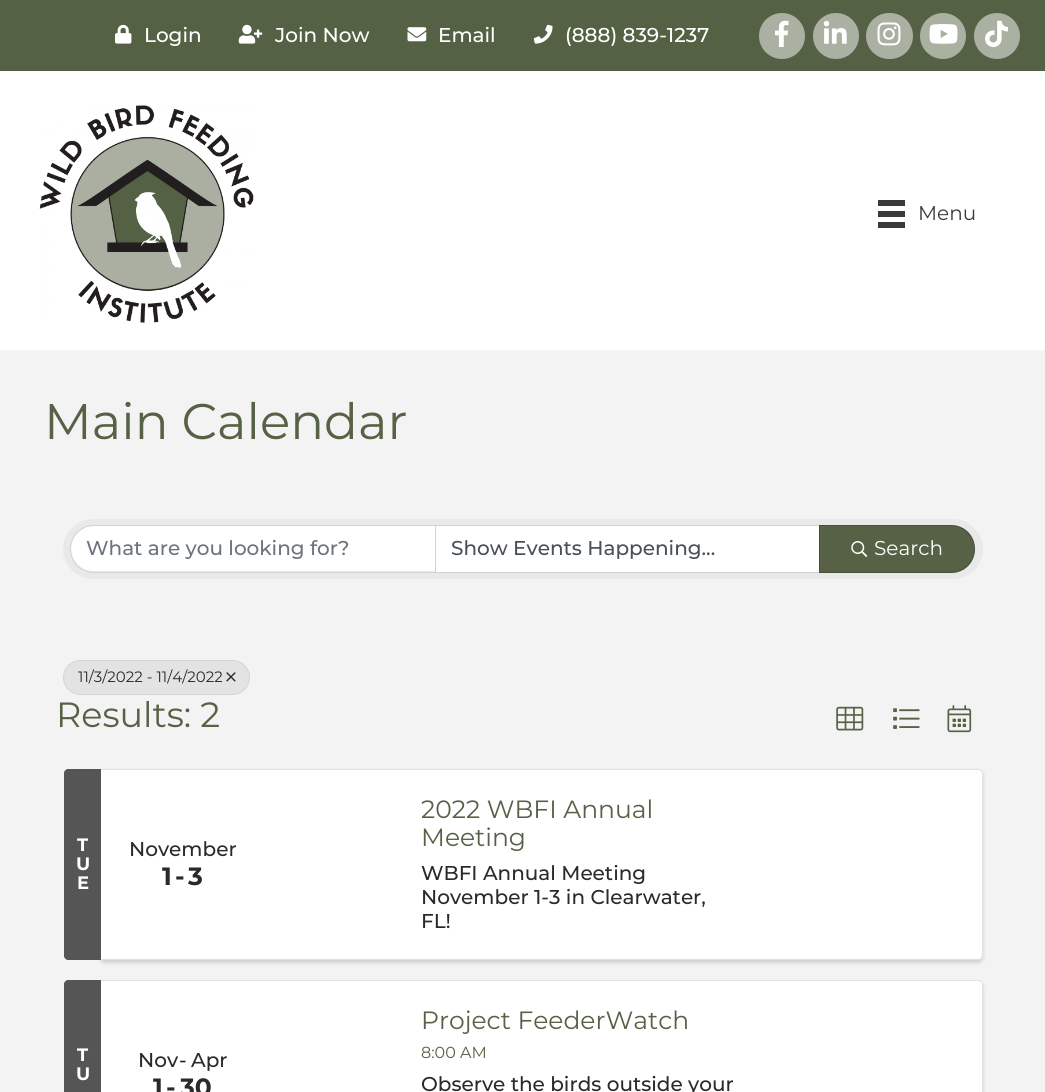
#include <cairo.h>
#include <math.h>
#include <stddef.h>


static void round_rect(cairo_t *cr, double x, double y, double w, double h, double r) {
    cairo_new_sub_path(cr);
    cairo_arc(cr, x + w - r, y + h - r, r, 0, M_PI / 2);
    cairo_arc(cr, x + r, y + h - r, r, M_PI / 2, M_PI);
    cairo_arc(cr, x + r, y + r, r, M_PI, 1.5 * M_PI);
    cairo_arc(cr, x + w - r, y + r, r, 1.5 * M_PI, 2 * M_PI);
    cairo_close_path(cr);
}

static void shadow(cairo_t *cr, double x, double y, double w, double h, double r, double blur, double alpha) {
    cairo_push_group_with_content(cr, CAIRO_CONTENT_ALPHA);
    cairo_set_operator(cr, CAIRO_OPERATOR_SOURCE);
    for (int i = 15; i >= -15 && fmin(w, h) + blur * i / 3 > 0; i -= 2) {
        double e = blur * i / 6;
        cairo_set_source_rgba(cr, 0, 0, 0, alpha * erfc((i - 1) / 8.5) / 2);
        round_rect(cr, x - e, y - e, w + 2 * e, h + 2 * e, fmax(0, fmin(r + e + blur * .6, fmin(w, h) / 2 + e)));
        cairo_fill(cr);
    }
    cairo_pattern_t *soft = cairo_pop_group(cr);
    cairo_mask(cr, soft);
    cairo_pattern_destroy(soft);
}

static void picture(cairo_t *cr, const char *path, double x, double y, double w, double h) {
    cairo_surface_t *image = cairo_image_surface_create_from_png(path);
    cairo_save(cr);
    cairo_set_source_surface(cr, image, x, y);
    cairo_rectangle(cr, x, y, w, h);
    cairo_fill(cr);
    cairo_restore(cr);
    cairo_surface_destroy(image);
}

int main(void) {
    cairo_surface_t *surface = cairo_image_surface_create(CAIRO_FORMAT_RGB24, 1045, 1092);
    cairo_t *cr = cairo_create(surface);
    cairo_font_options_t *options = cairo_font_options_create();
    cairo_font_options_set_hint_metrics(options, CAIRO_HINT_METRICS_OFF);
    cairo_font_options_set_hint_style(options, CAIRO_HINT_STYLE_NONE);
    cairo_set_font_options(cr, options);
    cairo_set_miter_limit(cr, 4);
    cairo_set_source_rgb(cr, 0.333, 0.38, 0.267);
    cairo_paint(cr);
    picture(cr, "img1.png", 115, 24, 17, 20);
    cairo_select_font_face(cr, "Montserrat Medium", CAIRO_FONT_SLANT_NORMAL, CAIRO_FONT_WEIGHT_NORMAL);
    cairo_set_font_size(cr, 20);
    cairo_set_source_rgb(cr, 1, 1, 1);
    cairo_move_to(cr, 144, 42);
    cairo_show_text(cr, "Login");
    picture(cr, "img2.png", 238, 24, 25, 20);
    cairo_move_to(cr, 275, 42);
    cairo_show_text(cr, "Join Now");
    picture(cr, "img3.png", 407, 27, 20, 15);
    cairo_move_to(cr, 438, 42);
    cairo_show_text(cr, "Email");
    picture(cr, "img4.png", 533, 24, 20, 20);
    cairo_move_to(cr, 565, 42);
    cairo_show_text(cr, "(888) 839-1237");
    cairo_set_source_rgb(cr, 0.667, 0.69, 0.635);
    cairo_new_path(cr);
    cairo_arc(cr, 782, 36, 23, 0, 2 * M_PI);
    cairo_fill(cr);
    picture(cr, "img5.png", 775, 20, 14, 27);
    cairo_arc(cr, 836, 36, 23, 0, 2 * M_PI);
    cairo_fill(cr);
    picture(cr, "img6.png", 823, 20, 24, 24);
    round_rect(cr, 866, 13, 47, 46, 23);
    cairo_fill(cr);
    picture(cr, "img7.png", 877, 22, 24, 24);
    cairo_arc(cr, 943, 36, 23, 0, 2 * M_PI);
    cairo_fill(cr);
    picture(cr, "img8.png", 929, 24, 29, 20);
    cairo_arc(cr, 997, 36, 23, 0, 2 * M_PI);
    cairo_fill(cr);
    picture(cr, "img9.png", 985, 20, 23, 27);
    cairo_set_source_rgb(cr, 1, 1, 1);
    cairo_rectangle(cr, 0, 71, 1045, 279);
    cairo_fill(cr);
    picture(cr, "img10.png", 39, 105, 215, 218);
    cairo_set_source_rgb(cr, 0.227, 0.227, 0.227);
    cairo_rectangle(cr, 878, 200, 27, 6);
    cairo_fill(cr);
    cairo_rectangle(cr, 878, 211, 27, 6);
    cairo_fill(cr);
    cairo_rectangle(cr, 878, 222, 27, 6);
    cairo_fill(cr);
    cairo_select_font_face(cr, "Montserrat", CAIRO_FONT_SLANT_NORMAL, CAIRO_FONT_WEIGHT_NORMAL);
    cairo_move_to(cr, 918, 220);
    cairo_show_text(cr, "Menu");
    cairo_set_source_rgb(cr, 0.953, 0.953, 0.953);
    cairo_rectangle(cr, 0, 350, 1045, 742);
    cairo_fill(cr);
    cairo_set_font_size(cr, 50);
    cairo_set_source_rgb(cr, 0.337, 0.38, 0.275);
    cairo_move_to(cr, 44, 439);
    cairo_show_text(cr, "Main Calendar");
    cairo_set_source_rgb(cr, 0.914, 0.914, 0.914);
    round_rect(cr, 63, 519, 920, 60, 30);
    cairo_fill(cr);
    cairo_set_source_rgb(cr, 1, 1, 1);
    cairo_new_path(cr);
    cairo_move_to(cr, 93.5, 526);
    cairo_line_to(cr, 435, 526);
    cairo_line_to(cr, 435, 571);
    cairo_line_to(cr, 93.5, 571);
    cairo_curve_to(cr, 81, 571, 71, 561, 71, 548.5);
    cairo_curve_to(cr, 71, 536, 81, 526, 93.5, 526);
    cairo_close_path(cr);
    cairo_fill(cr);
    cairo_rectangle(cr, 435.5, 525.5, 384, 47);
    cairo_fill_preserve(cr);
    cairo_set_source_rgb(cr, 0.808, 0.831, 0.855);
    cairo_set_line_width(cr, 1);
    cairo_stroke(cr);
    cairo_new_path(cr);
    cairo_move_to(cr, 94, 525.5);
    cairo_line_to(cr, 435.5, 525.5);
    cairo_line_to(cr, 435.5, 572.5);
    cairo_line_to(cr, 94, 572.5);
    cairo_curve_to(cr, 81, 572.5, 70.5, 562, 70.5, 549);
    cairo_curve_to(cr, 70.5, 536, 81, 525.5, 94, 525.5);
    cairo_close_path(cr);
    cairo_stroke(cr);
    cairo_select_font_face(cr, "Montserrat Medium", CAIRO_FONT_SLANT_NORMAL, CAIRO_FONT_WEIGHT_NORMAL);
    cairo_set_font_size(cr, 20);
    cairo_set_source_rgb(cr, 0.424, 0.459, 0.49);
    cairo_move_to(cr, 86, 555);
    cairo_show_text(cr, "What are you looking for?");
    cairo_set_source_rgb(cr, 0.286, 0.314, 0.341);
    cairo_move_to(cr, 451, 555);
    cairo_show_text(cr, "Show Events Happening...");
    cairo_set_source_rgb(cr, 0.337, 0.38, 0.275);
    cairo_new_path(cr);
    cairo_move_to(cr, 819, 525);
    cairo_line_to(cr, 951, 525);
    cairo_curve_to(cr, 964.5, 525, 975, 535.5, 975, 549);
    cairo_curve_to(cr, 975, 562.5, 964.5, 573, 951, 573);
    cairo_line_to(cr, 819, 573);
    cairo_close_path(cr);
    cairo_fill(cr);
    cairo_new_path(cr);
    cairo_move_to(cr, 819.5, 525.5);
    cairo_line_to(cr, 951, 525.5);
    cairo_curve_to(cr, 964, 525.5, 974.5, 536, 974.5, 549);
    cairo_curve_to(cr, 974.5, 562, 964, 572.5, 951, 572.5);
    cairo_line_to(cr, 819.5, 572.5);
    cairo_close_path(cr);
    cairo_set_source_rgba(cr, 0, 0, 0, 0.2);
    cairo_stroke(cr);
    picture(cr, "img11.png", 851, 541, 17, 16);
    cairo_select_font_face(cr, "Montserrat", CAIRO_FONT_SLANT_NORMAL, CAIRO_FONT_WEIGHT_NORMAL);
    cairo_set_source_rgb(cr, 1, 1, 1);
    cairo_move_to(cr, 874, 555);
    cairo_show_text(cr, "Search");
    cairo_set_source_rgb(cr, 0.89, 0.89, 0.89);
    round_rect(cr, 63, 660, 187, 35, 17.5);
    cairo_fill(cr);
    round_rect(cr, 63.5, 660.5, 186, 34, 17);
    cairo_set_source_rgba(cr, 0, 0, 0, 0.07);
    cairo_stroke(cr);
    cairo_set_font_size(cr, 15);
    cairo_set_source_rgb(cr, 0.165, 0.165, 0.165);
    cairo_move_to(cr, 78, 682);
    cairo_show_text(cr, "11/3/2022 - 11/4/2022");
    picture(cr, "img12.png", 226, 672, 10, 10);
    cairo_set_font_size(cr, 35);
    cairo_set_source_rgb(cr, 0.337, 0.38, 0.275);
    cairo_move_to(cr, 56, 727);
    cairo_show_text(cr, "Results: 2");
    picture(cr, "img13.png", 836, 706, 28, 25);
    picture(cr, "img14.png", 893, 708, 27, 21);
    picture(cr, "img15.png", 947, 705, 25, 28);
    cairo_set_source_rgb(cr, 0, 0, 0);
    shadow(cr, 100, 771, 883, 192, 5, 2, 0.15);
    cairo_set_source_rgb(cr, 1, 1, 1);
    cairo_new_path(cr);
    cairo_move_to(cr, 100, 769);
    cairo_line_to(cr, 978, 769);
    cairo_curve_to(cr, 981, 769, 983, 771, 983, 774);
    cairo_line_to(cr, 983, 955);
    cairo_curve_to(cr, 983, 958, 981, 960, 978, 960);
    cairo_line_to(cr, 100, 960);
    cairo_close_path(cr);
    cairo_fill(cr);
    cairo_new_path(cr);
    cairo_move_to(cr, 100.5, 769.5);
    cairo_line_to(cr, 978, 769.5);
    cairo_curve_to(cr, 980.5, 769.5, 982.5, 771.5, 982.5, 774);
    cairo_line_to(cr, 982.5, 955);
    cairo_curve_to(cr, 982.5, 957.5, 980.5, 959.5, 978, 959.5);
    cairo_line_to(cr, 100.5, 959.5);
    cairo_close_path(cr);
    cairo_set_source_rgba(cr, 0, 0, 0, 0.12);
    cairo_stroke(cr);
    cairo_set_source_rgb(cr, 0.333, 0.333, 0.333);
    cairo_new_path(cr);
    cairo_move_to(cr, 68, 769);
    cairo_line_to(cr, 101, 769);
    cairo_line_to(cr, 101, 960);
    cairo_line_to(cr, 68, 960);
    cairo_curve_to(cr, 66, 960, 64, 958, 64, 956);
    cairo_line_to(cr, 64, 773);
    cairo_curve_to(cr, 64, 771, 66, 769, 68, 769);
    cairo_close_path(cr);
    cairo_fill(cr);
    cairo_select_font_face(cr, "Montserrat", CAIRO_FONT_SLANT_NORMAL, CAIRO_FONT_WEIGHT_BOLD);
    cairo_set_font_size(cr, 18);
    cairo_set_source_rgb(cr, 1, 1, 1);
    cairo_move_to(cr, 77, 851);
    cairo_show_text(cr, "T");
    cairo_move_to(cr, 76, 870);
    cairo_show_text(cr, "U");
    cairo_move_to(cr, 77, 889);
    cairo_show_text(cr, "E");
    cairo_select_font_face(cr, "Montserrat Medium", CAIRO_FONT_SLANT_NORMAL, CAIRO_FONT_WEIGHT_NORMAL);
    cairo_set_font_size(cr, 20);
    cairo_set_source_rgb(cr, 0.165, 0.165, 0.165);
    cairo_move_to(cr, 129, 856);
    cairo_show_text(cr, "November");
    cairo_select_font_face(cr, "Montserrat", CAIRO_FONT_SLANT_NORMAL, CAIRO_FONT_WEIGHT_BOLD);
    cairo_set_font_size(cr, 25);
    cairo_move_to(cr, 162, 885);
    cairo_show_text(cr, "1");
    cairo_move_to(cr, 175, 885);
    cairo_show_text(cr, "-");
    cairo_move_to(cr, 188, 885);
    cairo_show_text(cr, "3");
    cairo_select_font_face(cr, "Montserrat", CAIRO_FONT_SLANT_NORMAL, CAIRO_FONT_WEIGHT_NORMAL);
    cairo_set_source_rgb(cr, 0.337, 0.38, 0.275);
    cairo_move_to(cr, 421, 818);
    cairo_show_text(cr, "2022 WBFI Annual");
    cairo_move_to(cr, 421, 846);
    cairo_show_text(cr, "Meeting");
    cairo_select_font_face(cr, "Montserrat Medium", CAIRO_FONT_SLANT_NORMAL, CAIRO_FONT_WEIGHT_NORMAL);
    cairo_set_font_size(cr, 20);
    cairo_set_source_rgb(cr, 0.165, 0.165, 0.165);
    cairo_move_to(cr, 421, 880);
    cairo_show_text(cr, "WBFI Annual Meeting");
    cairo_move_to(cr, 421, 904);
    cairo_show_text(cr, "November 1-3 in Clearwater,");
    cairo_move_to(cr, 421, 928);
    cairo_show_text(cr, "FL!");
    cairo_set_source_rgb(cr, 0, 0, 0);
    shadow(cr, 100, 983, 883, 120, 5, 2, 0.15);
    cairo_set_source_rgb(cr, 1, 1, 1);
    cairo_new_path(cr);
    cairo_move_to(cr, 100, 980);
    cairo_line_to(cr, 978, 980);
    cairo_curve_to(cr, 981, 980, 983, 982, 983, 985);
    cairo_line_to(cr, 983, 1092);
    cairo_curve_to(cr, 983, 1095, 981, 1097, 978, 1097);
    cairo_line_to(cr, 100, 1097);
    cairo_close_path(cr);
    cairo_fill(cr);
    cairo_new_path(cr);
    cairo_move_to(cr, 100.5, 980.5);
    cairo_line_to(cr, 978, 980.5);
    cairo_curve_to(cr, 980.5, 980.5, 982.5, 982.5, 982.5, 985);
    cairo_line_to(cr, 982.5, 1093);
    cairo_curve_to(cr, 982.5, 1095.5, 980.5, 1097.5, 978, 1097.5);
    cairo_line_to(cr, 100.5, 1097.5);
    cairo_close_path(cr);
    cairo_set_source_rgba(cr, 0, 0, 0, 0.12);
    cairo_stroke(cr);
    cairo_set_source_rgb(cr, 0.333, 0.333, 0.333);
    cairo_new_path(cr);
    cairo_move_to(cr, 68, 980);
    cairo_line_to(cr, 101, 980);
    cairo_line_to(cr, 101, 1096);
    cairo_line_to(cr, 68, 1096);
    cairo_curve_to(cr, 66, 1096, 64, 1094, 64, 1092);
    cairo_line_to(cr, 64, 984);
    cairo_curve_to(cr, 64, 982, 66, 980, 68, 980);
    cairo_close_path(cr);
    cairo_fill(cr);
    cairo_select_font_face(cr, "Montserrat", CAIRO_FONT_SLANT_NORMAL, CAIRO_FONT_WEIGHT_BOLD);
    cairo_set_font_size(cr, 18);
    cairo_set_source_rgb(cr, 1, 1, 1);
    cairo_move_to(cr, 77, 1061);
    cairo_show_text(cr, "T");
    cairo_move_to(cr, 76, 1080);
    cairo_show_text(cr, "U");
    cairo_select_font_face(cr, "Montserrat Medium", CAIRO_FONT_SLANT_NORMAL, CAIRO_FONT_WEIGHT_NORMAL);
    cairo_set_font_size(cr, 20);
    cairo_set_source_rgb(cr, 0.165, 0.165, 0.165);
    cairo_move_to(cr, 138, 1067);
    cairo_show_text(cr, "Nov");
    cairo_move_to(cr, 179, 1067);
    cairo_show_text(cr, "-");
    cairo_move_to(cr, 191, 1067);
    cairo_show_text(cr, "Apr");
    cairo_select_font_face(cr, "Montserrat", CAIRO_FONT_SLANT_NORMAL, CAIRO_FONT_WEIGHT_BOLD);
    cairo_set_font_size(cr, 25);
    cairo_move_to(cr, 153, 1096);
    cairo_show_text(cr, "1");
    cairo_move_to(cr, 166, 1096);
    cairo_show_text(cr, "-");
    cairo_move_to(cr, 180, 1096);
    cairo_show_text(cr, "30");
    cairo_select_font_face(cr, "Montserrat", CAIRO_FONT_SLANT_NORMAL, CAIRO_FONT_WEIGHT_NORMAL);
    cairo_set_source_rgb(cr, 0.337, 0.38, 0.275);
    cairo_move_to(cr, 421, 1029);
    cairo_show_text(cr, "Project FeederWatch");
    cairo_set_font_size(cr, 16);
    cairo_move_to(cr, 421, 1058);
    cairo_show_text(cr, "8:00 AM");
    cairo_select_font_face(cr, "Montserrat Medium", CAIRO_FONT_SLANT_NORMAL, CAIRO_FONT_WEIGHT_NORMAL);
    cairo_set_font_size(cr, 20);
    cairo_set_source_rgb(cr, 0.165, 0.165, 0.165);
    cairo_move_to(cr, 421, 1091);
    cairo_show_text(cr, "Observe the birds outside your");
    cairo_surface_write_to_png(surface, "page.png");
    cairo_font_options_destroy(options);
    cairo_destroy(cr);
    cairo_surface_destroy(surface);
    return 0;
}
